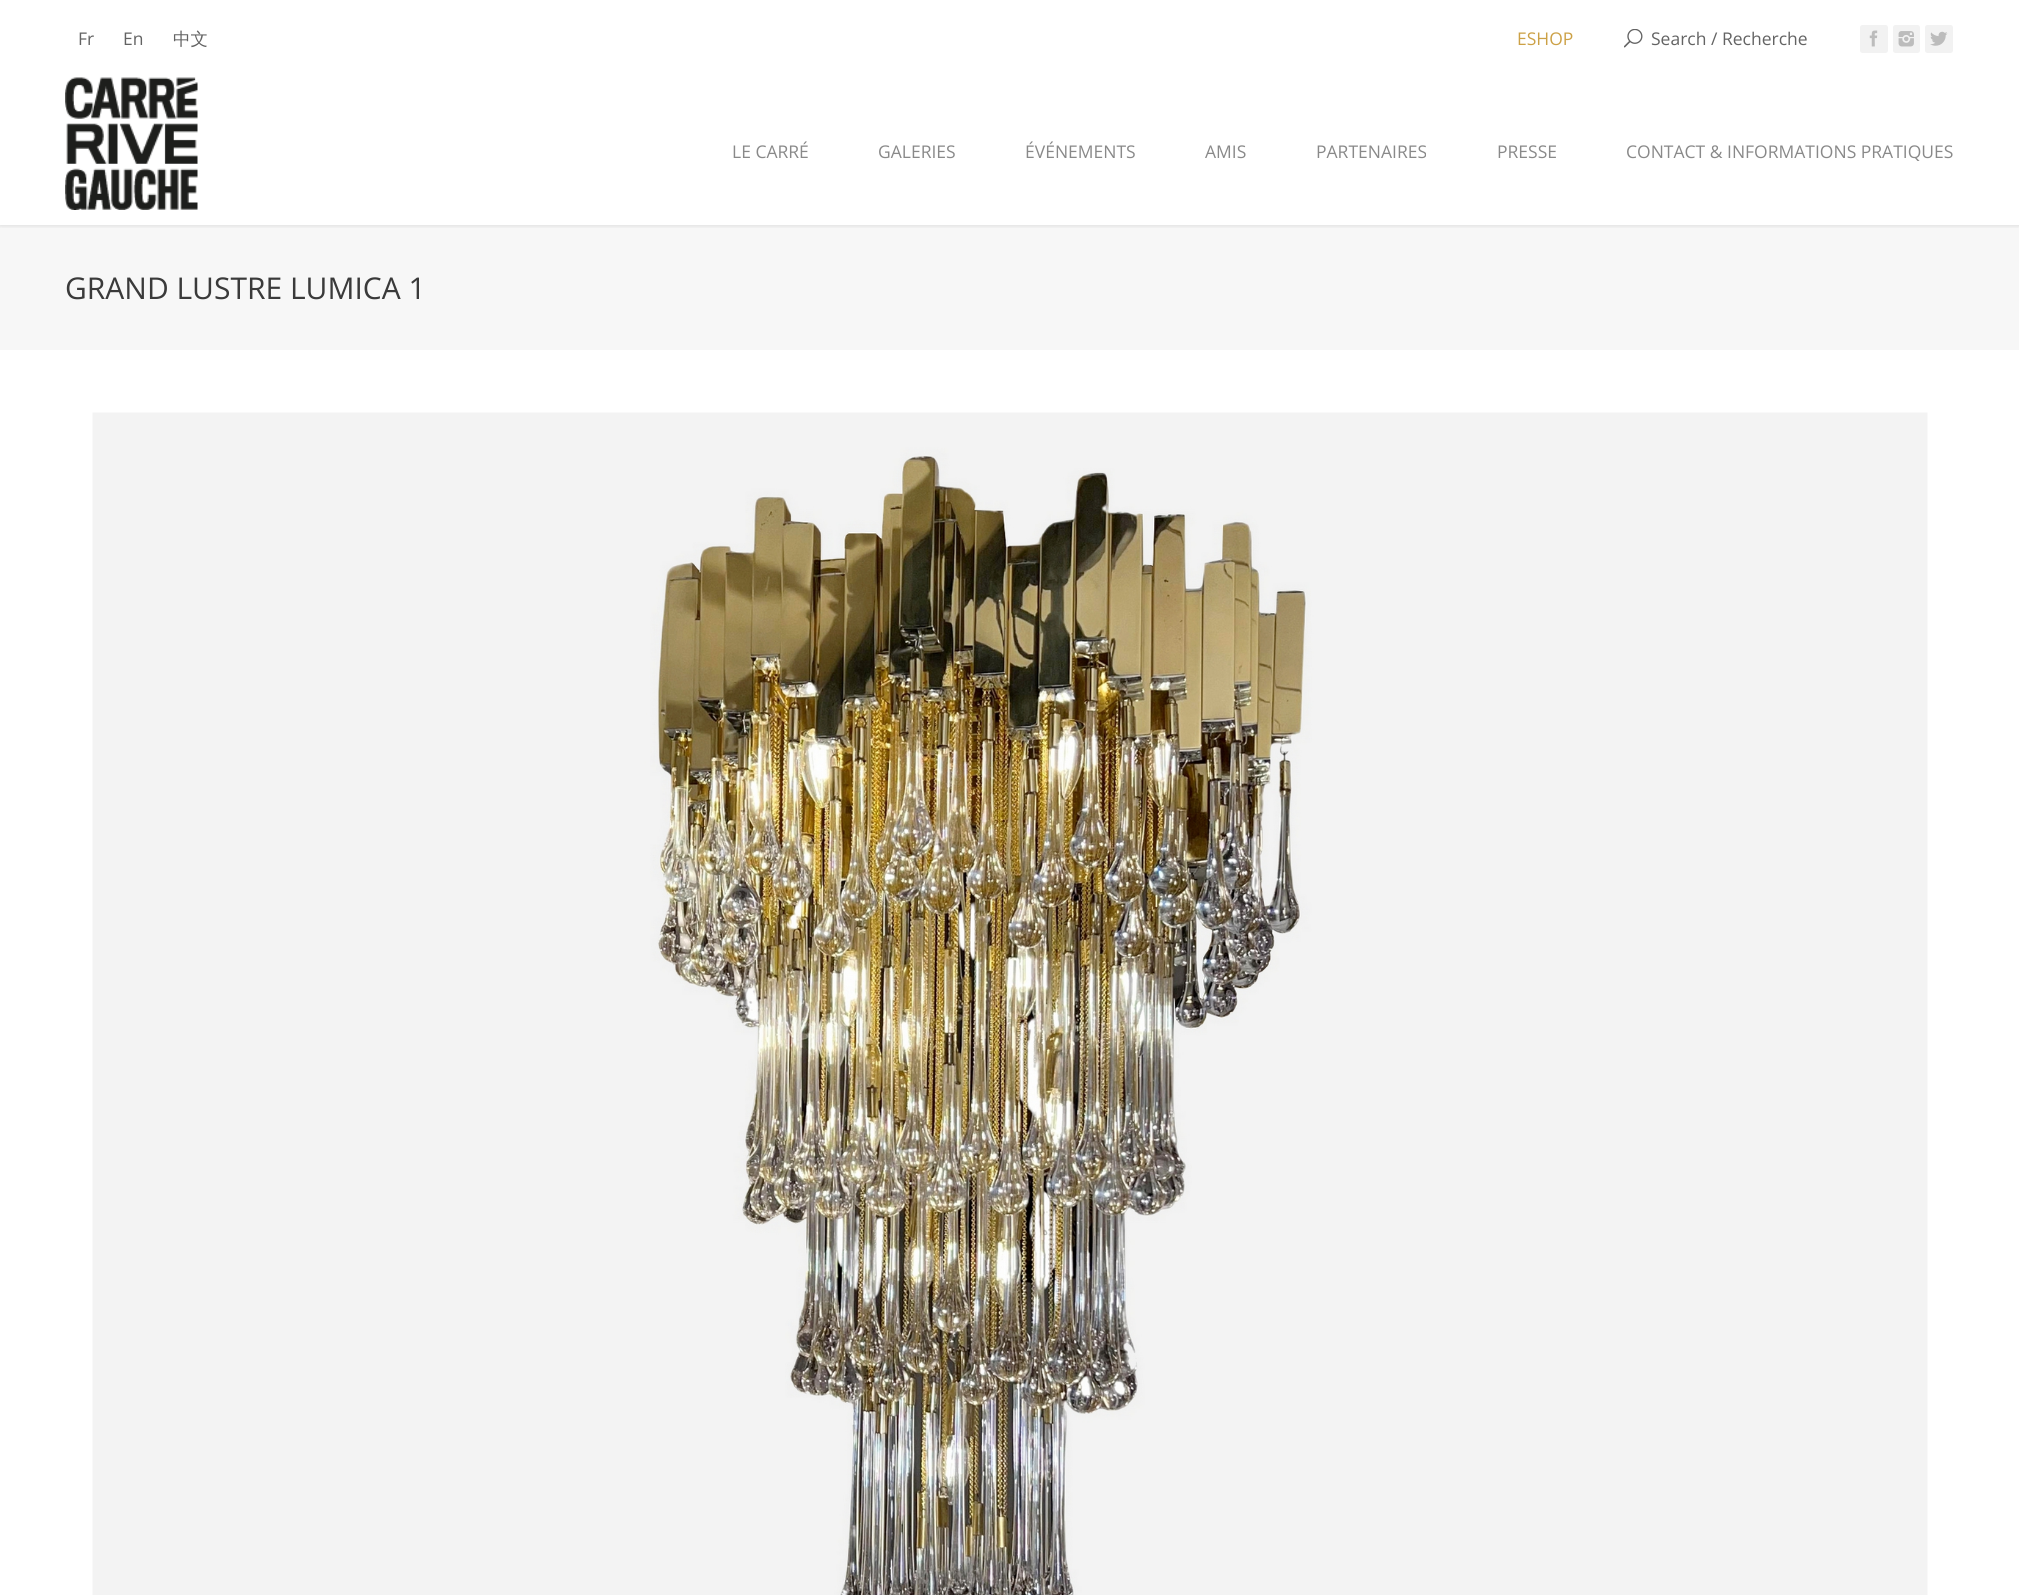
#include <cairo.h>
#include <math.h>
#include <stddef.h>


static void round_rect(cairo_t *cr, double x, double y, double w, double h, double r) {
    cairo_new_sub_path(cr);
    cairo_arc(cr, x + w - r, y + h - r, r, 0, M_PI / 2);
    cairo_arc(cr, x + r, y + h - r, r, M_PI / 2, M_PI);
    cairo_arc(cr, x + r, y + r, r, M_PI, 1.5 * M_PI);
    cairo_arc(cr, x + w - r, y + r, r, 1.5 * M_PI, 2 * M_PI);
    cairo_close_path(cr);
}

static void shadow(cairo_t *cr, double x, double y, double w, double h, double r, double blur, double alpha) {
    cairo_push_group_with_content(cr, CAIRO_CONTENT_ALPHA);
    cairo_set_operator(cr, CAIRO_OPERATOR_SOURCE);
    for (int i = 15; i >= -15 && fmin(w, h) + blur * i / 3 > 0; i -= 2) {
        double e = blur * i / 6;
        cairo_set_source_rgba(cr, 0, 0, 0, alpha * erfc((i - 1) / 8.5) / 2);
        round_rect(cr, x - e, y - e, w + 2 * e, h + 2 * e, fmax(0, fmin(r + e + blur * .6, fmin(w, h) / 2 + e)));
        cairo_fill(cr);
    }
    cairo_pattern_t *soft = cairo_pop_group(cr);
    cairo_mask(cr, soft);
    cairo_pattern_destroy(soft);
}

static void picture(cairo_t *cr, const char *path, double x, double y, double w, double h) {
    cairo_surface_t *image = cairo_image_surface_create_from_png(path);
    cairo_save(cr);
    cairo_set_source_surface(cr, image, x, y);
    cairo_rectangle(cr, x, y, w, h);
    cairo_fill(cr);
    cairo_restore(cr);
    cairo_surface_destroy(image);
}

int main(void) {
    cairo_surface_t *surface = cairo_image_surface_create(CAIRO_FORMAT_RGB24, 2019, 1595);
    cairo_t *cr = cairo_create(surface);
    cairo_font_options_t *options = cairo_font_options_create();
    cairo_font_options_set_hint_metrics(options, CAIRO_HINT_METRICS_OFF);
    cairo_font_options_set_hint_style(options, CAIRO_HINT_STYLE_NONE);
    cairo_set_font_options(cr, options);
    cairo_set_miter_limit(cr, 4);
    cairo_set_source_rgb(cr, 1, 1, 1);
    cairo_paint(cr);
    cairo_set_source_rgb(cr, 0.965, 0.965, 0.965);
    cairo_rectangle(cr, 0, 225, 2019, 125);
    cairo_fill(cr);
    cairo_save(cr);
    cairo_rectangle(cr, 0, 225, 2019, 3);
    cairo_clip(cr);
    cairo_set_source_rgb(cr, 0, 0, 0);
    shadow(cr, 0, 0, 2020, 225, 0, 2.5, 0.15);
    cairo_restore(cr);
    cairo_select_font_face(cr, "Open Sans", CAIRO_FONT_SLANT_NORMAL, CAIRO_FONT_WEIGHT_NORMAL);
    cairo_set_font_size(cr, 17.5);
    cairo_set_source_rgb(cr, 0.388, 0.388, 0.388);
    cairo_move_to(cr, 78, 45);
    cairo_show_text(cr, "Fr");
    cairo_move_to(cr, 123, 45);
    cairo_show_text(cr, "En");
    cairo_select_font_face(cr, "WenQuanYi Zen Hei Medium", CAIRO_FONT_SLANT_NORMAL, CAIRO_FONT_WEIGHT_NORMAL);
    cairo_move_to(cr, 173, 45);
    cairo_show_text(cr, "中文");
    cairo_select_font_face(cr, "Open Sans", CAIRO_FONT_SLANT_NORMAL, CAIRO_FONT_WEIGHT_NORMAL);
    cairo_set_source_rgb(cr, 0.8, 0.631, 0.275);
    cairo_move_to(cr, 1517, 45);
    cairo_show_text(cr, "ESHOP");
    picture(cr, "img1.png", 1624, 29, 19, 19);
    cairo_set_source_rgb(cr, 0.388, 0.388, 0.388);
    cairo_move_to(cr, 1651, 45);
    cairo_show_text(cr, "Search / Recherche");
    cairo_set_source_rgb(cr, 0.949, 0.949, 0.949);
    round_rect(cr, 1860, 25, 28, 28, 2.5);
    cairo_fill(cr);
    picture(cr, "img2.png", 1869, 30, 9, 17);
    round_rect(cr, 1893, 25, 27, 28, 2.5);
    cairo_fill(cr);
    picture(cr, "img3.png", 1898, 31, 16, 16);
    round_rect(cr, 1925, 25, 28, 28, 2.5);
    cairo_fill(cr);
    picture(cr, "img4.png", 1930, 31, 18, 15);
    picture(cr, "img5.png", 65, 77, 133, 133);
    cairo_set_source_rgb(cr, 0.537, 0.537, 0.537);
    cairo_move_to(cr, 732, 158);
    cairo_show_text(cr, "LE CARRÉ");
    cairo_move_to(cr, 878, 158);
    cairo_show_text(cr, "GALERIES");
    cairo_move_to(cr, 1025, 158);
    cairo_show_text(cr, "ÉVÉNEMENTS");
    cairo_move_to(cr, 1205, 158);
    cairo_show_text(cr, "AMIS");
    cairo_move_to(cr, 1316, 158);
    cairo_show_text(cr, "PARTENAIRES");
    cairo_move_to(cr, 1497, 158);
    cairo_show_text(cr, "PRESSE");
    cairo_move_to(cr, 1626, 158);
    cairo_show_text(cr, "CONTACT & INFORMATIONS PRATIQUES");
    cairo_set_font_size(cr, 30);
    cairo_set_source_rgb(cr, 0.227, 0.227, 0.227);
    cairo_move_to(cr, 65, 299);
    cairo_show_text(cr, "GRAND LUSTRE LUMICA 1");
    picture(cr, "img6.png", 92, 412, 1836, 1183);
    cairo_surface_write_to_png(surface, "page.png");
    cairo_font_options_destroy(options);
    cairo_destroy(cr);
    cairo_surface_destroy(surface);
    return 0;
}
